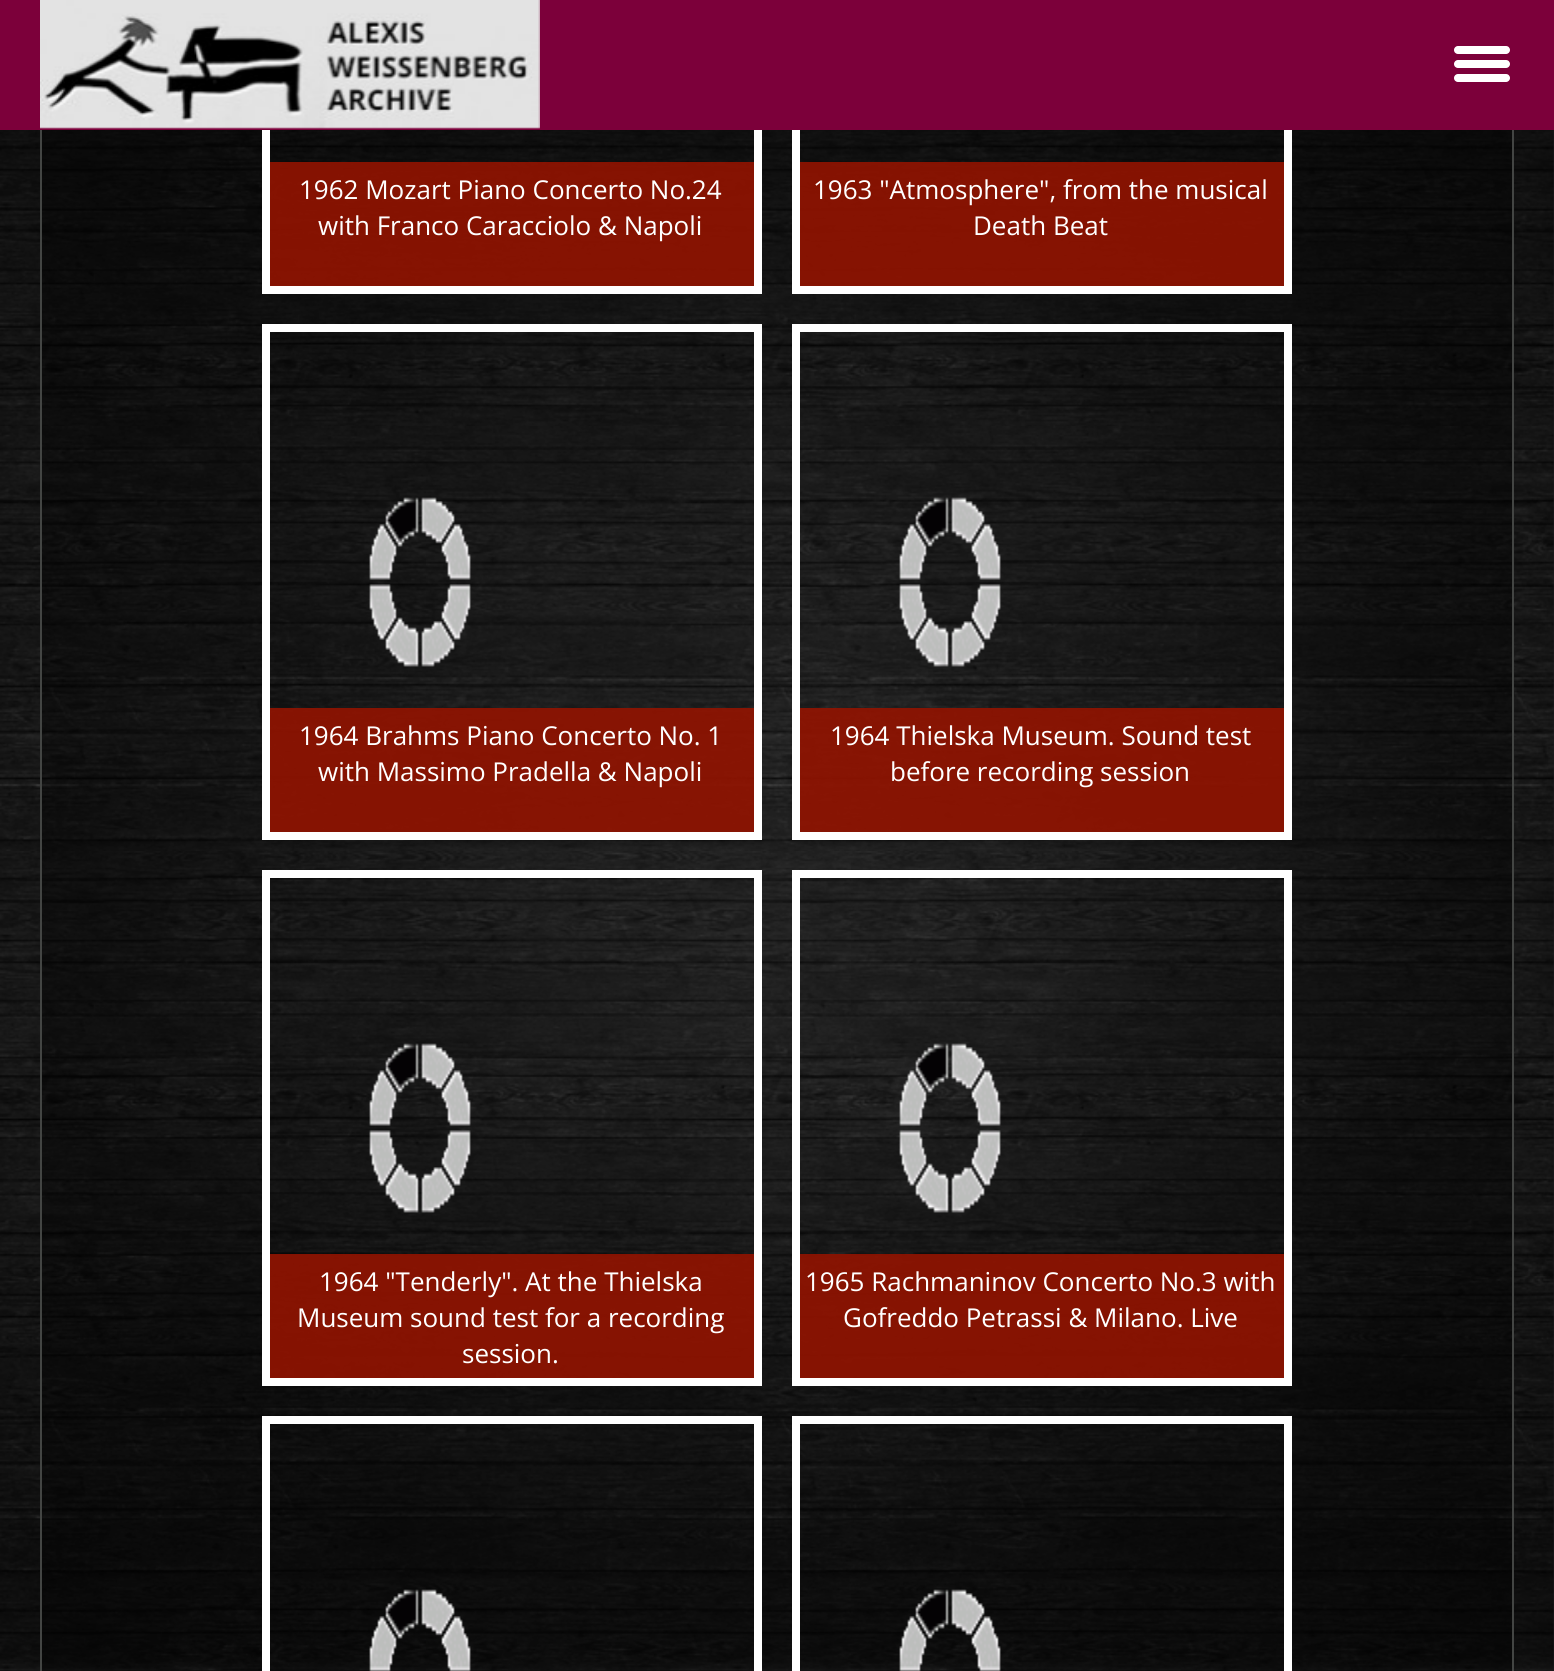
#include <cairo.h>
#include <math.h>
#include <stddef.h>


static void round_rect(cairo_t *cr, double x, double y, double w, double h, double r) {
    cairo_new_sub_path(cr);
    cairo_arc(cr, x + w - r, y + h - r, r, 0, M_PI / 2);
    cairo_arc(cr, x + r, y + h - r, r, M_PI / 2, M_PI);
    cairo_arc(cr, x + r, y + r, r, M_PI, 1.5 * M_PI);
    cairo_arc(cr, x + w - r, y + r, r, 1.5 * M_PI, 2 * M_PI);
    cairo_close_path(cr);
}

static void picture(cairo_t *cr, const char *path, double x, double y, double w, double h) {
    cairo_surface_t *image = cairo_image_surface_create_from_png(path);
    cairo_save(cr);
    cairo_set_source_surface(cr, image, x, y);
    cairo_rectangle(cr, x, y, w, h);
    cairo_fill(cr);
    cairo_restore(cr);
    cairo_surface_destroy(image);
}

int main(void) {
    cairo_surface_t *surface = cairo_image_surface_create(CAIRO_FORMAT_RGB24, 1554, 1671);
    cairo_t *cr = cairo_create(surface);
    cairo_font_options_t *options = cairo_font_options_create();
    cairo_font_options_set_hint_metrics(options, CAIRO_HINT_METRICS_OFF);
    cairo_font_options_set_hint_style(options, CAIRO_HINT_STYLE_NONE);
    cairo_set_font_options(cr, options);
    cairo_set_miter_limit(cr, 4);
    cairo_set_source_rgb(cr, 0.11, 0.125, 0.137);
    cairo_paint(cr);
    picture(cr, "img2.png", 0, 130, 1554, 1541);
    cairo_rectangle(cr, 41, -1, 1472, 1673);
    cairo_set_source_rgb(cr, 0.263, 0.271, 0.263);
    cairo_stroke(cr);
    cairo_rectangle(cr, 266, -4, 492, 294);
    cairo_set_source_rgb(cr, 1, 1, 1);
    cairo_set_line_width(cr, 8);
    cairo_stroke(cr);
    cairo_rectangle(cr, 796, -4, 492, 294);
    cairo_stroke(cr);
    cairo_set_source_rgb(cr, 0.486, 0, 0.227);
    cairo_rectangle(cr, 0, 0, 1554, 130);
    cairo_fill(cr);
    picture(cr, "img1.png", 40, 0, 500, 129);
    cairo_set_source_rgb(cr, 1, 1, 1);
    round_rect(cr, 1454, 46, 56, 8, 4);
    cairo_fill(cr);
    round_rect(cr, 1454, 60, 56, 8, 4);
    cairo_fill(cr);
    round_rect(cr, 1454, 74, 56, 8, 4);
    cairo_fill(cr);
    cairo_set_source_rgba(cr, 0.576, 0.075, 0, 0.9);
    cairo_rectangle(cr, 270, 162, 484, 124);
    cairo_fill(cr);
    cairo_select_font_face(cr, "Open Sans", CAIRO_FONT_SLANT_NORMAL, CAIRO_FONT_WEIGHT_NORMAL);
    cairo_set_font_size(cr, 26);
    cairo_set_source_rgb(cr, 1, 1, 1);
    cairo_move_to(cr, 299, 199);
    cairo_show_text(cr, "1962 Mozart Piano Concerto No.24");
    cairo_move_to(cr, 318, 235);
    cairo_show_text(cr, "with Franco Caracciolo & Napoli");
    cairo_set_source_rgba(cr, 0.576, 0.075, 0, 0.9);
    cairo_rectangle(cr, 800, 162, 484, 124);
    cairo_fill(cr);
    cairo_set_source_rgb(cr, 1, 1, 1);
    cairo_move_to(cr, 813, 199);
    cairo_show_text(cr, "1963 \"Atmosphere\", from the musical");
    cairo_move_to(cr, 973, 235);
    cairo_show_text(cr, "Death Beat");
    cairo_rectangle(cr, 266, 328, 492, 508);
    cairo_stroke(cr);
    picture(cr, "img3.png", 369, 497, 102, 170);
    cairo_set_source_rgba(cr, 0.576, 0.075, 0, 0.9);
    cairo_rectangle(cr, 270, 708, 484, 124);
    cairo_fill(cr);
    cairo_set_source_rgb(cr, 1, 1, 1);
    cairo_move_to(cr, 299, 745);
    cairo_show_text(cr, "1964 Brahms Piano Concerto No. 1");
    cairo_move_to(cr, 318, 781);
    cairo_show_text(cr, "with Massimo Pradella & Napoli");
    cairo_rectangle(cr, 796, 328, 492, 508);
    cairo_stroke(cr);
    picture(cr, "img4.png", 899, 497, 102, 170);
    cairo_set_source_rgba(cr, 0.576, 0.075, 0, 0.9);
    cairo_rectangle(cr, 800, 708, 484, 124);
    cairo_fill(cr);
    cairo_set_source_rgb(cr, 1, 1, 1);
    cairo_move_to(cr, 830, 745);
    cairo_show_text(cr, "1964 Thielska Museum. Sound test");
    cairo_move_to(cr, 890, 781);
    cairo_show_text(cr, "before recording session");
    cairo_rectangle(cr, 266, 874, 492, 508);
    cairo_stroke(cr);
    picture(cr, "img5.png", 369, 1043, 102, 170);
    cairo_set_source_rgba(cr, 0.576, 0.075, 0, 0.9);
    cairo_rectangle(cr, 270, 1254, 484, 124);
    cairo_fill(cr);
    cairo_set_source_rgb(cr, 1, 1, 1);
    cairo_move_to(cr, 319, 1291);
    cairo_show_text(cr, "1964 \"Tenderly\". At the Thielska");
    cairo_move_to(cr, 297, 1327);
    cairo_show_text(cr, "Museum sound test for a recording");
    cairo_move_to(cr, 462, 1363);
    cairo_show_text(cr, "session.");
    cairo_rectangle(cr, 796, 874, 492, 508);
    cairo_stroke(cr);
    picture(cr, "img6.png", 899, 1043, 102, 170);
    cairo_set_source_rgba(cr, 0.576, 0.075, 0, 0.9);
    cairo_rectangle(cr, 800, 1254, 484, 124);
    cairo_fill(cr);
    cairo_set_source_rgb(cr, 1, 1, 1);
    cairo_move_to(cr, 805, 1291);
    cairo_show_text(cr, "1965 Rachmaninov Concerto No.3 with");
    cairo_move_to(cr, 843, 1327);
    cairo_show_text(cr, "Gofreddo Petrassi & Milano. Live");
    cairo_rectangle(cr, 266, 1420, 492, 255);
    cairo_stroke(cr);
    picture(cr, "img7.png", 369, 1589, 102, 82);
    cairo_rectangle(cr, 796, 1420, 492, 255);
    cairo_stroke(cr);
    picture(cr, "img8.png", 899, 1589, 102, 82);
    cairo_surface_write_to_png(surface, "page.png");
    cairo_font_options_destroy(options);
    cairo_destroy(cr);
    cairo_surface_destroy(surface);
    return 0;
}
